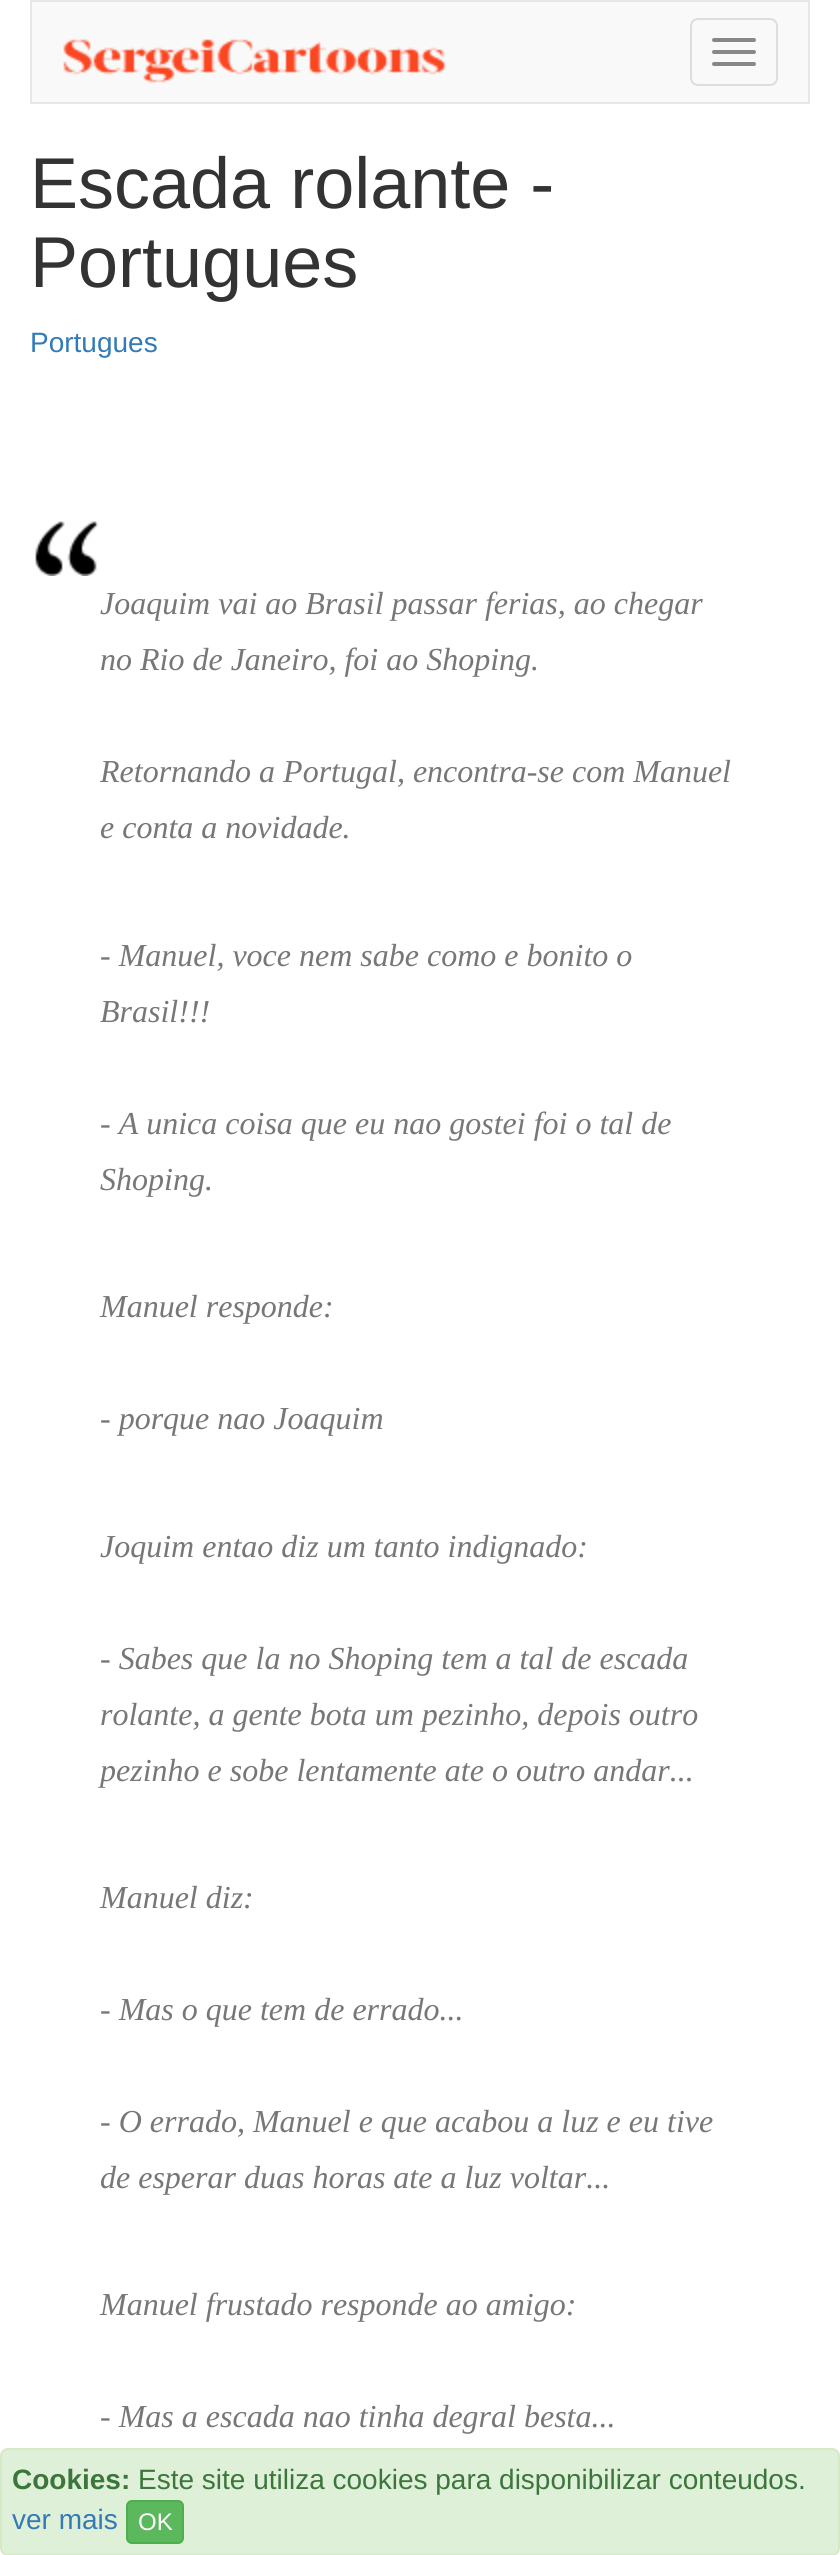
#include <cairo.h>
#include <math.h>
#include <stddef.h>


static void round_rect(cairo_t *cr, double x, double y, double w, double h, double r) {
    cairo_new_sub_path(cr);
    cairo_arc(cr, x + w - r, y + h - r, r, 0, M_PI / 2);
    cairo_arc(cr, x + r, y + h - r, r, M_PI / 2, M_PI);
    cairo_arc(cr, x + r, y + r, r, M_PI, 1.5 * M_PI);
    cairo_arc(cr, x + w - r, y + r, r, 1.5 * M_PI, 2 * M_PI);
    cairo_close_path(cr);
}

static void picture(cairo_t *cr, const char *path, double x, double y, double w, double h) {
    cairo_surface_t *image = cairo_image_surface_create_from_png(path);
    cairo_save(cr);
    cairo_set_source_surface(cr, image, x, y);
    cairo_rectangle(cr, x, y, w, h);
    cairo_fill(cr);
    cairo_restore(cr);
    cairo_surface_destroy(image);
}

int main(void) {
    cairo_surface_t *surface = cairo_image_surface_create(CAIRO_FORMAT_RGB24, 840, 2555);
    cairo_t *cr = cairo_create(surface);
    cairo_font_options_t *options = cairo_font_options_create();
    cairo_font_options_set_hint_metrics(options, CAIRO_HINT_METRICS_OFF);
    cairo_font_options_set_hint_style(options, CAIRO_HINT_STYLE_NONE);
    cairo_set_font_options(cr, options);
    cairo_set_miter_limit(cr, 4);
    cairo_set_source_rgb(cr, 1, 1, 1);
    cairo_paint(cr);
    cairo_set_source_rgb(cr, 0.973, 0.973, 0.973);
    cairo_rectangle(cr, 31, 1, 778, 102);
    cairo_fill_preserve(cr);
    cairo_set_source_rgb(cr, 0.906, 0.906, 0.906);
    cairo_stroke(cr);
    picture(cr, "img1.png", 63, 39, 384, 44);
    round_rect(cr, 691, 19, 86, 66, 7);
    cairo_set_source_rgb(cr, 0.867, 0.867, 0.867);
    cairo_stroke(cr);
    cairo_set_source_rgb(cr, 0.533, 0.533, 0.533);
    round_rect(cr, 712, 38, 44, 4, 2);
    cairo_fill(cr);
    round_rect(cr, 712, 50, 44, 4, 2);
    cairo_fill(cr);
    round_rect(cr, 712, 62, 44, 4, 2);
    cairo_fill(cr);
    cairo_select_font_face(cr, "Liberation Sans", CAIRO_FONT_SLANT_NORMAL, CAIRO_FONT_WEIGHT_NORMAL);
    cairo_set_font_size(cr, 72);
    cairo_set_source_rgb(cr, 0.2, 0.2, 0.2);
    cairo_move_to(cr, 30, 208);
    cairo_show_text(cr, "Escada rolante -");
    cairo_move_to(cr, 30, 287);
    cairo_show_text(cr, "Portugues");
    cairo_set_font_size(cr, 28);
    cairo_set_source_rgb(cr, 0.2, 0.478, 0.718);
    cairo_move_to(cr, 30, 352);
    cairo_show_text(cr, "Portugues");
    picture(cr, "img2.png", 35, 521, 64, 55);
    cairo_select_font_face(cr, "Liberation Serif", CAIRO_FONT_SLANT_ITALIC, CAIRO_FONT_WEIGHT_NORMAL);
    cairo_set_font_size(cr, 32);
    cairo_set_source_rgb(cr, 0.467, 0.467, 0.467);
    cairo_move_to(cr, 100, 614);
    cairo_show_text(cr, "Joaquim vai ao Brasil passar ferias, ao chegar");
    cairo_move_to(cr, 100, 670);
    cairo_show_text(cr, "no Rio de Janeiro, foi ao Shoping.");
    cairo_move_to(cr, 100, 782);
    cairo_show_text(cr, "Retornando a Portugal, encontra-se com Manuel");
    cairo_move_to(cr, 100, 838);
    cairo_show_text(cr, "e conta a novidade.");
    cairo_move_to(cr, 100, 966);
    cairo_show_text(cr, "- Manuel, voce nem sabe como e bonito o");
    cairo_move_to(cr, 100, 1022);
    cairo_show_text(cr, "Brasil!!!");
    cairo_move_to(cr, 100, 1134);
    cairo_show_text(cr, "- A unica coisa que eu nao gostei foi o tal de");
    cairo_move_to(cr, 100, 1190);
    cairo_show_text(cr, "Shoping.");
    cairo_move_to(cr, 100, 1317);
    cairo_show_text(cr, "Manuel responde:");
    cairo_move_to(cr, 100, 1429);
    cairo_show_text(cr, "- porque nao Joaquim");
    cairo_move_to(cr, 100, 1557);
    cairo_show_text(cr, "Joquim entao diz um tanto indignado:");
    cairo_move_to(cr, 100, 1669);
    cairo_show_text(cr, "- Sabes que la no Shoping tem a tal de escada");
    cairo_move_to(cr, 100, 1725);
    cairo_show_text(cr, "rolante, a gente bota um pezinho, depois outro");
    cairo_move_to(cr, 100, 1781);
    cairo_show_text(cr, "pezinho e sobe lentamente ate o outro andar...");
    cairo_move_to(cr, 100, 1908);
    cairo_show_text(cr, "Manuel diz:");
    cairo_move_to(cr, 100, 2020);
    cairo_show_text(cr, "- Mas o que tem de errado...");
    cairo_move_to(cr, 100, 2132);
    cairo_show_text(cr, "- O errado, Manuel e que acabou a luz e eu tive");
    cairo_move_to(cr, 100, 2188);
    cairo_show_text(cr, "de esperar duas horas ate a luz voltar...");
    cairo_move_to(cr, 100, 2315);
    cairo_show_text(cr, "Manuel frustado responde ao amigo:");
    cairo_move_to(cr, 100, 2427);
    cairo_show_text(cr, "- Mas a escada nao tinha degral besta...");
    cairo_set_source_rgb(cr, 0.875, 0.941, 0.847);
    round_rect(cr, 1, 2449, 838, 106, 7);
    cairo_fill_preserve(cr);
    cairo_set_source_rgb(cr, 0.839, 0.914, 0.776);
    cairo_stroke(cr);
    cairo_select_font_face(cr, "Liberation Sans", CAIRO_FONT_SLANT_NORMAL, CAIRO_FONT_WEIGHT_BOLD);
    cairo_set_font_size(cr, 28);
    cairo_set_source_rgb(cr, 0.235, 0.463, 0.239);
    cairo_move_to(cr, 12, 2489);
    cairo_show_text(cr, "Cookies:");
    cairo_select_font_face(cr, "Liberation Sans", CAIRO_FONT_SLANT_NORMAL, CAIRO_FONT_WEIGHT_NORMAL);
    cairo_move_to(cr, 138, 2489);
    cairo_show_text(cr, "Este site utiliza cookies para disponibilizar conteudos.");
    cairo_set_source_rgb(cr, 0.2, 0.478, 0.718);
    cairo_move_to(cr, 12, 2529);
    cairo_show_text(cr, "ver mais");
    cairo_set_source_rgb(cr, 0.361, 0.722, 0.361);
    round_rect(cr, 127, 2501, 56, 42, 5);
    cairo_fill_preserve(cr);
    cairo_set_source_rgb(cr, 0.298, 0.682, 0.298);
    cairo_stroke(cr);
    cairo_set_font_size(cr, 24);
    cairo_set_source_rgb(cr, 1, 1, 1);
    cairo_move_to(cr, 138, 2530);
    cairo_show_text(cr, "OK");
    cairo_surface_write_to_png(surface, "page.png");
    cairo_font_options_destroy(options);
    cairo_destroy(cr);
    cairo_surface_destroy(surface);
    return 0;
}
